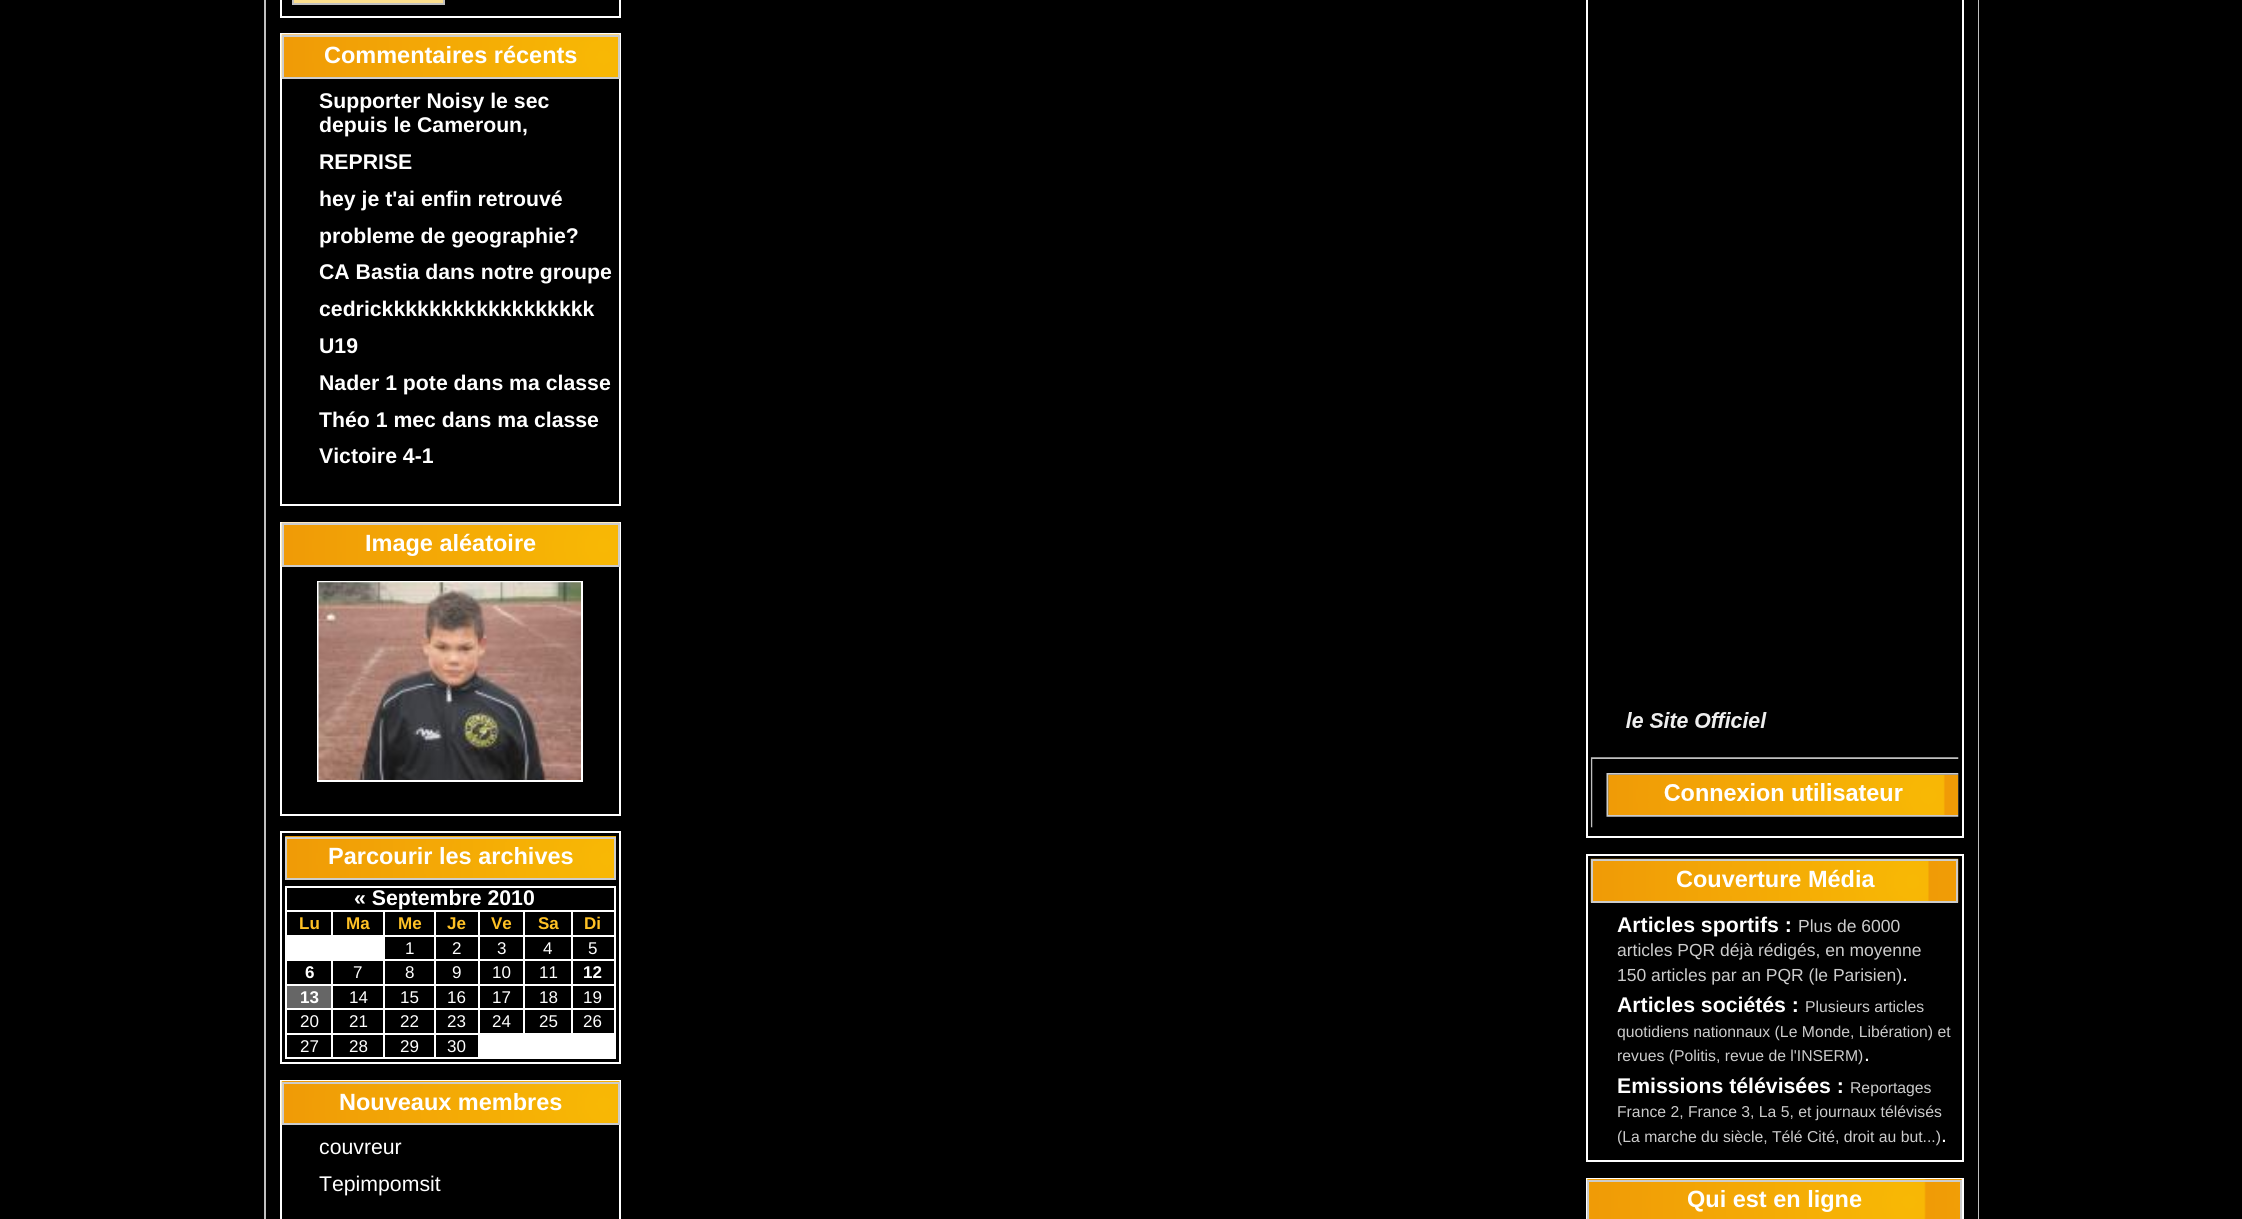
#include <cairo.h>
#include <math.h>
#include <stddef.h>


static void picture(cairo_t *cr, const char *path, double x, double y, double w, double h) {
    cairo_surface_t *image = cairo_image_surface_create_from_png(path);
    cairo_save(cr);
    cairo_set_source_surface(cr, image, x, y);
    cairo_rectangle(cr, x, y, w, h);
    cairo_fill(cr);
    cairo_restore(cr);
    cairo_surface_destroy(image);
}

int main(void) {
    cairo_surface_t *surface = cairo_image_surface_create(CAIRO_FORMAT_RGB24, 2242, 1219);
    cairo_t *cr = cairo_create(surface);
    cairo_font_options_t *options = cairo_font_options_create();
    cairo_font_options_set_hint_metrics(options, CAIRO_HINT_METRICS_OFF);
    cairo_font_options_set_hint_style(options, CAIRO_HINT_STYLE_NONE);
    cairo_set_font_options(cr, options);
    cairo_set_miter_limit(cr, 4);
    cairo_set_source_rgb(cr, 0, 0, 0);
    cairo_paint(cr);
    cairo_rectangle(cr, 265, -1, 1713, 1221);
    cairo_set_source_rgb(cr, 0.753, 0.753, 0.753);
    cairo_stroke(cr);
    cairo_rectangle(cr, 281, -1, 339, 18);
    cairo_set_source_rgb(cr, 1, 1, 1);
    cairo_stroke(cr);
    cairo_set_source_rgb(cr, 0.988, 0.875, 0.557);
    cairo_rectangle(cr, 293, -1, 151, 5);
    cairo_fill_preserve(cr);
    cairo_set_source_rgb(cr, 0.753, 0.753, 0.753);
    cairo_stroke(cr);
    cairo_rectangle(cr, 281, 34, 339, 471);
    cairo_set_source_rgb(cr, 1, 1, 1);
    cairo_stroke(cr);
    picture(cr, "img1.png", 281, 34, 339, 45);
    cairo_rectangle(cr, 283, 36, 336, 42);
    cairo_set_source_rgb(cr, 0.8, 0.8, 0.8);
    cairo_stroke(cr);
    cairo_select_font_face(cr, "Liberation Sans", CAIRO_FONT_SLANT_NORMAL, CAIRO_FONT_WEIGHT_BOLD);
    cairo_set_font_size(cr, 23.5);
    cairo_set_source_rgb(cr, 1, 1, 1);
    cairo_move_to(cr, 324, 63);
    cairo_show_text(cr, "Commentaires récents");
    cairo_set_font_size(cr, 21.25);
    cairo_move_to(cr, 319, 108);
    cairo_show_text(cr, "Supporter Noisy le sec");
    cairo_move_to(cr, 319, 132);
    cairo_show_text(cr, "depuis le Cameroun,");
    cairo_move_to(cr, 319, 169);
    cairo_show_text(cr, "REPRISE");
    cairo_move_to(cr, 319, 206);
    cairo_show_text(cr, "hey je t'ai enfin retrouvé");
    cairo_move_to(cr, 319, 243);
    cairo_show_text(cr, "probleme de geographie?");
    cairo_move_to(cr, 319, 279);
    cairo_show_text(cr, "CA Bastia dans notre groupe");
    cairo_move_to(cr, 319, 316);
    cairo_show_text(cr, "cedrickkkkkkkkkkkkkkkkkk");
    cairo_move_to(cr, 319, 353);
    cairo_show_text(cr, "U19");
    cairo_move_to(cr, 319, 390);
    cairo_show_text(cr, "Nader 1 pote dans ma classe");
    cairo_move_to(cr, 319, 427);
    cairo_show_text(cr, "Théo 1 mec dans ma classe");
    cairo_move_to(cr, 319, 463);
    cairo_show_text(cr, "Victoire 4-1");
    cairo_rectangle(cr, 281, 523, 339, 292);
    cairo_stroke(cr);
    picture(cr, "img2.png", 281, 522, 339, 45);
    cairo_rectangle(cr, 283, 524, 336, 42);
    cairo_set_source_rgb(cr, 0.8, 0.8, 0.8);
    cairo_stroke(cr);
    cairo_set_font_size(cr, 23.5);
    cairo_set_source_rgb(cr, 1, 1, 1);
    cairo_move_to(cr, 365, 551);
    cairo_show_text(cr, "Image aléatoire");
    cairo_rectangle(cr, 318, 582, 264, 199);
    cairo_stroke(cr);
    picture(cr, "img3.png", 318, 582, 263, 198);
    cairo_rectangle(cr, 281, 832, 339, 231);
    cairo_stroke(cr);
    picture(cr, "img4.png", 285, 836, 331, 42);
    cairo_rectangle(cr, 286, 838, 329, 41);
    cairo_set_source_rgb(cr, 0.8, 0.8, 0.8);
    cairo_stroke(cr);
    cairo_set_source_rgb(cr, 1, 1, 1);
    cairo_move_to(cr, 328, 864);
    cairo_show_text(cr, "Parcourir les archives");
    cairo_rectangle(cr, 285, 886, 331, 2);
    cairo_fill(cr);
    cairo_rectangle(cr, 614, 886, 2, 173);
    cairo_fill(cr);
    cairo_rectangle(cr, 285, 1057, 331, 2);
    cairo_fill(cr);
    cairo_rectangle(cr, 285, 886, 2, 173);
    cairo_fill(cr);
    cairo_set_font_size(cr, 21.25);
    cairo_move_to(cr, 354, 905);
    cairo_show_text(cr, "« Septembre 2010");
    cairo_rectangle(cr, 571, 910, 45, 2);
    cairo_fill(cr);
    cairo_rectangle(cr, 571, 935, 45, 2);
    cairo_fill(cr);
    cairo_rectangle(cr, 571, 959, 45, 2);
    cairo_fill(cr);
    cairo_rectangle(cr, 571, 984, 45, 2);
    cairo_fill(cr);
    cairo_rectangle(cr, 571, 1008, 45, 2);
    cairo_fill(cr);
    cairo_rectangle(cr, 571, 1033, 45, 2);
    cairo_fill(cr);
    cairo_rectangle(cr, 571, 1008, 2, 26);
    cairo_fill(cr);
    cairo_rectangle(cr, 523, 1008, 49, 2);
    cairo_fill(cr);
    cairo_rectangle(cr, 571, 984, 2, 26);
    cairo_fill(cr);
    cairo_rectangle(cr, 523, 984, 49, 2);
    cairo_fill(cr);
    cairo_rectangle(cr, 571, 959, 2, 26);
    cairo_fill(cr);
    cairo_rectangle(cr, 523, 959, 49, 2);
    cairo_fill(cr);
    cairo_rectangle(cr, 571, 935, 2, 26);
    cairo_fill(cr);
    cairo_rectangle(cr, 523, 935, 49, 2);
    cairo_fill(cr);
    cairo_rectangle(cr, 571, 910, 2, 26);
    cairo_fill(cr);
    cairo_rectangle(cr, 523, 910, 49, 2);
    cairo_fill(cr);
    cairo_rectangle(cr, 523, 1033, 49, 2);
    cairo_fill(cr);
    cairo_rectangle(cr, 523, 1008, 2, 26);
    cairo_fill(cr);
    cairo_rectangle(cr, 478, 1008, 47, 2);
    cairo_fill(cr);
    cairo_rectangle(cr, 523, 984, 2, 26);
    cairo_fill(cr);
    cairo_rectangle(cr, 478, 984, 47, 2);
    cairo_fill(cr);
    cairo_rectangle(cr, 523, 959, 2, 26);
    cairo_fill(cr);
    cairo_rectangle(cr, 478, 959, 47, 2);
    cairo_fill(cr);
    cairo_rectangle(cr, 523, 935, 2, 26);
    cairo_fill(cr);
    cairo_rectangle(cr, 478, 935, 47, 2);
    cairo_fill(cr);
    cairo_rectangle(cr, 523, 910, 2, 26);
    cairo_fill(cr);
    cairo_rectangle(cr, 478, 910, 47, 2);
    cairo_fill(cr);
    cairo_rectangle(cr, 434, 1033, 46, 2);
    cairo_fill(cr);
    cairo_rectangle(cr, 478, 1033, 47, 2);
    cairo_fill(cr);
    cairo_rectangle(cr, 478, 1008, 2, 26);
    cairo_fill(cr);
    cairo_rectangle(cr, 434, 1008, 46, 2);
    cairo_fill(cr);
    cairo_rectangle(cr, 478, 984, 2, 26);
    cairo_fill(cr);
    cairo_rectangle(cr, 434, 984, 46, 2);
    cairo_fill(cr);
    cairo_rectangle(cr, 478, 959, 2, 26);
    cairo_fill(cr);
    cairo_rectangle(cr, 434, 959, 46, 2);
    cairo_fill(cr);
    cairo_rectangle(cr, 478, 935, 2, 26);
    cairo_fill(cr);
    cairo_rectangle(cr, 434, 935, 46, 2);
    cairo_fill(cr);
    cairo_rectangle(cr, 478, 910, 2, 26);
    cairo_fill(cr);
    cairo_rectangle(cr, 434, 910, 46, 2);
    cairo_fill(cr);
    cairo_rectangle(cr, 434, 1033, 2, 26);
    cairo_fill(cr);
    cairo_rectangle(cr, 383, 1033, 53, 2);
    cairo_fill(cr);
    cairo_rectangle(cr, 434, 1008, 2, 26);
    cairo_fill(cr);
    cairo_rectangle(cr, 383, 1008, 53, 2);
    cairo_fill(cr);
    cairo_rectangle(cr, 434, 984, 2, 26);
    cairo_fill(cr);
    cairo_rectangle(cr, 383, 984, 53, 2);
    cairo_fill(cr);
    cairo_rectangle(cr, 434, 959, 2, 26);
    cairo_fill(cr);
    cairo_rectangle(cr, 383, 959, 53, 2);
    cairo_fill(cr);
    cairo_rectangle(cr, 434, 935, 2, 26);
    cairo_fill(cr);
    cairo_rectangle(cr, 383, 935, 53, 2);
    cairo_fill(cr);
    cairo_rectangle(cr, 434, 910, 2, 26);
    cairo_fill(cr);
    cairo_rectangle(cr, 383, 910, 53, 2);
    cairo_fill(cr);
    cairo_rectangle(cr, 383, 1033, 2, 26);
    cairo_fill(cr);
    cairo_rectangle(cr, 331, 1033, 54, 2);
    cairo_fill(cr);
    cairo_rectangle(cr, 383, 1008, 2, 26);
    cairo_fill(cr);
    cairo_rectangle(cr, 331, 1008, 54, 2);
    cairo_fill(cr);
    cairo_rectangle(cr, 383, 984, 2, 26);
    cairo_fill(cr);
    cairo_rectangle(cr, 331, 984, 54, 2);
    cairo_fill(cr);
    cairo_rectangle(cr, 383, 959, 2, 26);
    cairo_fill(cr);
    cairo_rectangle(cr, 383, 935, 2, 26);
    cairo_fill(cr);
    cairo_rectangle(cr, 383, 910, 2, 26);
    cairo_fill(cr);
    cairo_rectangle(cr, 331, 910, 54, 2);
    cairo_fill(cr);
    cairo_rectangle(cr, 331, 935, 54, 2);
    cairo_fill(cr);
    cairo_rectangle(cr, 331, 910, 2, 26);
    cairo_fill(cr);
    cairo_rectangle(cr, 285, 910, 48, 2);
    cairo_fill(cr);
    cairo_rectangle(cr, 285, 935, 48, 2);
    cairo_fill(cr);
    cairo_set_font_size(cr, 17);
    cairo_set_source_rgb(cr, 1, 0.757, 0.145);
    cairo_move_to(cr, 299, 929);
    cairo_show_text(cr, "Lu");
    cairo_move_to(cr, 346, 929);
    cairo_show_text(cr, "Ma");
    cairo_move_to(cr, 398, 929);
    cairo_show_text(cr, "Me");
    cairo_move_to(cr, 447, 929);
    cairo_show_text(cr, "Je");
    cairo_move_to(cr, 491, 929);
    cairo_show_text(cr, "Ve");
    cairo_move_to(cr, 538, 929);
    cairo_show_text(cr, "Sa");
    cairo_move_to(cr, 584, 929);
    cairo_show_text(cr, "Di");
    cairo_set_source_rgb(cr, 1, 1, 1);
    cairo_rectangle(cr, 287, 937, 96, 24);
    cairo_fill(cr);
    cairo_select_font_face(cr, "Liberation Sans", CAIRO_FONT_SLANT_NORMAL, CAIRO_FONT_WEIGHT_NORMAL);
    cairo_move_to(cr, 405, 954);
    cairo_show_text(cr, "1");
    cairo_move_to(cr, 452, 954);
    cairo_show_text(cr, "2");
    cairo_move_to(cr, 497, 954);
    cairo_show_text(cr, "3");
    cairo_move_to(cr, 543, 954);
    cairo_show_text(cr, "4");
    cairo_move_to(cr, 588, 954);
    cairo_show_text(cr, "5");
    cairo_select_font_face(cr, "Liberation Sans", CAIRO_FONT_SLANT_NORMAL, CAIRO_FONT_WEIGHT_BOLD);
    cairo_move_to(cr, 305, 978);
    cairo_show_text(cr, "6");
    cairo_rectangle(cr, 331, 1033, 2, 26);
    cairo_fill(cr);
    cairo_rectangle(cr, 285, 1033, 48, 2);
    cairo_fill(cr);
    cairo_rectangle(cr, 331, 1008, 2, 26);
    cairo_fill(cr);
    cairo_rectangle(cr, 285, 1008, 48, 2);
    cairo_fill(cr);
    cairo_rectangle(cr, 331, 984, 2, 26);
    cairo_fill(cr);
    cairo_rectangle(cr, 285, 984, 48, 2);
    cairo_fill(cr);
    cairo_rectangle(cr, 331, 959, 2, 26);
    cairo_fill(cr);
    cairo_select_font_face(cr, "Liberation Sans", CAIRO_FONT_SLANT_NORMAL, CAIRO_FONT_WEIGHT_NORMAL);
    cairo_move_to(cr, 353, 978);
    cairo_show_text(cr, "7");
    cairo_move_to(cr, 405, 978);
    cairo_show_text(cr, "8");
    cairo_move_to(cr, 452, 978);
    cairo_show_text(cr, "9");
    cairo_move_to(cr, 492, 978);
    cairo_show_text(cr, "10");
    cairo_move_to(cr, 539, 978);
    cairo_show_text(cr, "11");
    cairo_select_font_face(cr, "Liberation Sans", CAIRO_FONT_SLANT_NORMAL, CAIRO_FONT_WEIGHT_BOLD);
    cairo_move_to(cr, 583, 978);
    cairo_show_text(cr, "12");
    cairo_set_source_rgb(cr, 0.4, 0.4, 0.4);
    cairo_rectangle(cr, 287, 986, 44, 22);
    cairo_fill(cr);
    cairo_set_source_rgb(cr, 1, 1, 1);
    cairo_move_to(cr, 300, 1003);
    cairo_show_text(cr, "13");
    cairo_select_font_face(cr, "Liberation Sans", CAIRO_FONT_SLANT_NORMAL, CAIRO_FONT_WEIGHT_NORMAL);
    cairo_move_to(cr, 349, 1003);
    cairo_show_text(cr, "14");
    cairo_move_to(cr, 400, 1003);
    cairo_show_text(cr, "15");
    cairo_move_to(cr, 447, 1003);
    cairo_show_text(cr, "16");
    cairo_move_to(cr, 492, 1003);
    cairo_show_text(cr, "17");
    cairo_move_to(cr, 539, 1003);
    cairo_show_text(cr, "18");
    cairo_move_to(cr, 583, 1003);
    cairo_show_text(cr, "19");
    cairo_move_to(cr, 300, 1027);
    cairo_show_text(cr, "20");
    cairo_move_to(cr, 349, 1027);
    cairo_show_text(cr, "21");
    cairo_move_to(cr, 400, 1027);
    cairo_show_text(cr, "22");
    cairo_move_to(cr, 447, 1027);
    cairo_show_text(cr, "23");
    cairo_move_to(cr, 492, 1027);
    cairo_show_text(cr, "24");
    cairo_move_to(cr, 539, 1027);
    cairo_show_text(cr, "25");
    cairo_move_to(cr, 583, 1027);
    cairo_show_text(cr, "26");
    cairo_move_to(cr, 300, 1052);
    cairo_show_text(cr, "27");
    cairo_move_to(cr, 349, 1052);
    cairo_show_text(cr, "28");
    cairo_move_to(cr, 400, 1052);
    cairo_show_text(cr, "29");
    cairo_move_to(cr, 447, 1052);
    cairo_show_text(cr, "30");
    cairo_rectangle(cr, 478, 1035, 136, 22);
    cairo_fill(cr);
    cairo_rectangle(cr, 281, 1081, 339, 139);
    cairo_stroke(cr);
    picture(cr, "img5.png", 281, 1081, 339, 44);
    cairo_rectangle(cr, 283, 1083, 336, 41);
    cairo_set_source_rgb(cr, 0.8, 0.8, 0.8);
    cairo_stroke(cr);
    cairo_select_font_face(cr, "Liberation Sans", CAIRO_FONT_SLANT_NORMAL, CAIRO_FONT_WEIGHT_BOLD);
    cairo_set_font_size(cr, 23.5);
    cairo_set_source_rgb(cr, 1, 1, 1);
    cairo_move_to(cr, 339, 1110);
    cairo_show_text(cr, "Nouveaux membres");
    cairo_select_font_face(cr, "Liberation Sans", CAIRO_FONT_SLANT_NORMAL, CAIRO_FONT_WEIGHT_NORMAL);
    cairo_set_font_size(cr, 21.25);
    cairo_move_to(cr, 319, 1154);
    cairo_show_text(cr, "couvreur");
    cairo_move_to(cr, 319, 1191);
    cairo_show_text(cr, "Tepimpomsit");
    cairo_set_source_rgb(cr, 0, 0, 0);
    cairo_rectangle(cr, 1977, 0, 1, 1219);
    cairo_fill(cr);
    cairo_rectangle(cr, 1587, -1, 376, 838);
    cairo_set_source_rgb(cr, 1, 1, 1);
    cairo_stroke(cr);
    picture(cr, "img6.png", 1590, 712, 369, 116);
    cairo_rectangle(cr, 1587, 855, 376, 306);
    cairo_stroke(cr);
    picture(cr, "img7.png", 1590, 858, 369, 45);
    cairo_rectangle(cr, 1592, 860, 365, 42);
    cairo_set_source_rgb(cr, 0.8, 0.8, 0.8);
    cairo_stroke(cr);
    cairo_select_font_face(cr, "Liberation Sans", CAIRO_FONT_SLANT_NORMAL, CAIRO_FONT_WEIGHT_BOLD);
    cairo_set_font_size(cr, 23.5);
    cairo_set_source_rgb(cr, 1, 1, 1);
    cairo_move_to(cr, 1676, 887);
    cairo_show_text(cr, "Couverture Média");
    cairo_set_font_size(cr, 21.25);
    cairo_move_to(cr, 1617, 932);
    cairo_show_text(cr, "Articles sportifs :");
    cairo_select_font_face(cr, "Liberation Sans", CAIRO_FONT_SLANT_NORMAL, CAIRO_FONT_WEIGHT_NORMAL);
    cairo_set_font_size(cr, 17.5);
    cairo_set_source_rgb(cr, 0.8, 0.8, 0.8);
    cairo_move_to(cr, 1798, 932);
    cairo_show_text(cr, "Plus de 6000");
    cairo_move_to(cr, 1617, 956);
    cairo_show_text(cr, "articles PQR déjà rédigés, en moyenne");
    cairo_move_to(cr, 1617, 981);
    cairo_show_text(cr, "150 articles par an PQR (le Parisien)");
    cairo_set_font_size(cr, 21.25);
    cairo_set_source_rgb(cr, 1, 1, 1);
    cairo_move_to(cr, 1902, 981);
    cairo_show_text(cr, ".");
    cairo_select_font_face(cr, "Liberation Sans", CAIRO_FONT_SLANT_NORMAL, CAIRO_FONT_WEIGHT_BOLD);
    cairo_move_to(cr, 1617, 1012);
    cairo_show_text(cr, "Articles sociétés :");
    cairo_select_font_face(cr, "Liberation Sans", CAIRO_FONT_SLANT_NORMAL, CAIRO_FONT_WEIGHT_NORMAL);
    cairo_set_font_size(cr, 15.75);
    cairo_set_source_rgb(cr, 0.8, 0.8, 0.8);
    cairo_move_to(cr, 1805, 1012);
    cairo_show_text(cr, "Plusieurs articles");
    cairo_move_to(cr, 1617, 1037);
    cairo_show_text(cr, "quotidiens nationnaux (Le Monde, Libération) et");
    cairo_move_to(cr, 1617, 1061);
    cairo_show_text(cr, "revues (Politis, revue de l'INSERM)");
    cairo_set_font_size(cr, 21.25);
    cairo_set_source_rgb(cr, 1, 1, 1);
    cairo_move_to(cr, 1864, 1061);
    cairo_show_text(cr, ".");
    cairo_select_font_face(cr, "Liberation Sans", CAIRO_FONT_SLANT_NORMAL, CAIRO_FONT_WEIGHT_BOLD);
    cairo_move_to(cr, 1617, 1093);
    cairo_show_text(cr, "Emissions télévisées :");
    cairo_select_font_face(cr, "Liberation Sans", CAIRO_FONT_SLANT_NORMAL, CAIRO_FONT_WEIGHT_NORMAL);
    cairo_set_font_size(cr, 15.75);
    cairo_set_source_rgb(cr, 0.8, 0.8, 0.8);
    cairo_move_to(cr, 1850, 1093);
    cairo_show_text(cr, "Reportages");
    cairo_move_to(cr, 1617, 1117);
    cairo_show_text(cr, "France 2, France 3, La 5, et journaux télévisés");
    cairo_move_to(cr, 1617, 1142);
    cairo_show_text(cr, "(La marche du siècle, Télé Cité, droit au but...)");
    cairo_set_font_size(cr, 21.25);
    cairo_set_source_rgb(cr, 1, 1, 1);
    cairo_move_to(cr, 1941, 1142);
    cairo_show_text(cr, ".");
    cairo_rectangle(cr, 1587, 1179, 376, 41);
    cairo_stroke(cr);
    picture(cr, "img8.png", 1587, 1179, 375, 40);
    cairo_rectangle(cr, 1588, 1181, 373, 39);
    cairo_set_source_rgb(cr, 0.8, 0.8, 0.8);
    cairo_stroke(cr);
    cairo_select_font_face(cr, "Liberation Sans", CAIRO_FONT_SLANT_NORMAL, CAIRO_FONT_WEIGHT_BOLD);
    cairo_set_font_size(cr, 23.5);
    cairo_set_source_rgb(cr, 1, 1, 1);
    cairo_move_to(cr, 1687, 1207);
    cairo_show_text(cr, "Qui est en ligne");
    cairo_surface_write_to_png(surface, "page.png");
    cairo_font_options_destroy(options);
    cairo_destroy(cr);
    cairo_surface_destroy(surface);
    return 0;
}
